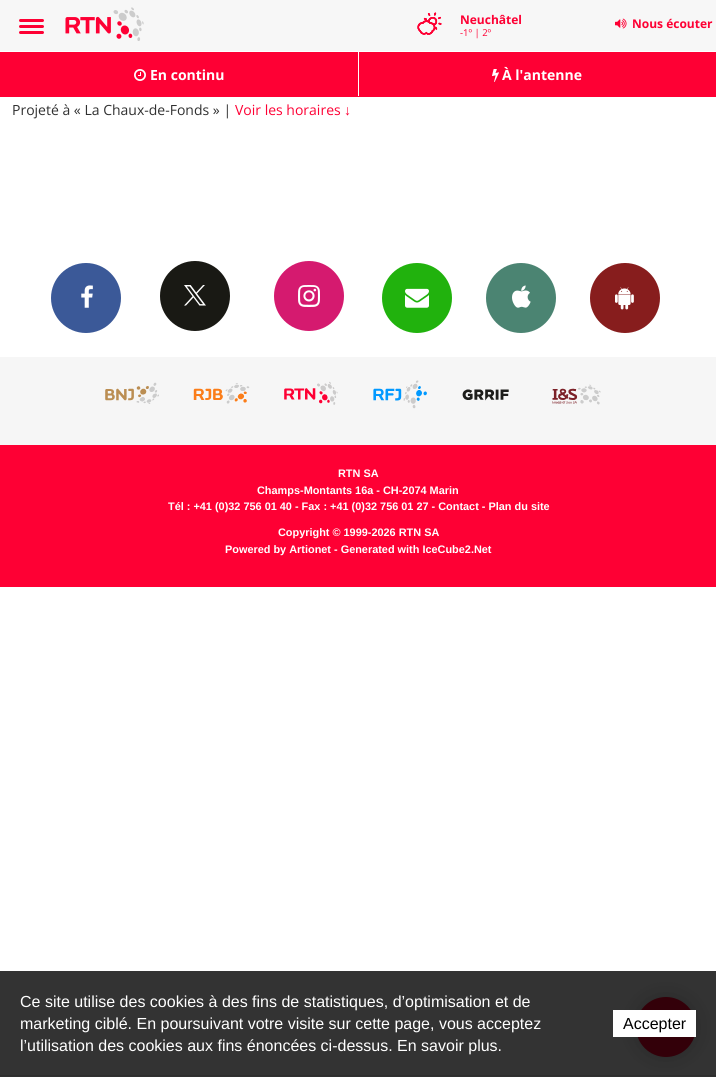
#include <cairo.h>
#include <math.h>
#include <stddef.h>


static void round_rect(cairo_t *cr, double x, double y, double w, double h, double r) {
    cairo_new_sub_path(cr);
    cairo_arc(cr, x + w - r, y + h - r, r, 0, M_PI / 2);
    cairo_arc(cr, x + r, y + h - r, r, M_PI / 2, M_PI);
    cairo_arc(cr, x + r, y + r, r, M_PI, 1.5 * M_PI);
    cairo_arc(cr, x + w - r, y + r, r, 1.5 * M_PI, 2 * M_PI);
    cairo_close_path(cr);
}

static void shadow(cairo_t *cr, double x, double y, double w, double h, double r, double blur, double alpha) {
    cairo_push_group_with_content(cr, CAIRO_CONTENT_ALPHA);
    cairo_set_operator(cr, CAIRO_OPERATOR_SOURCE);
    for (int i = 15; i >= -15 && fmin(w, h) + blur * i / 3 > 0; i -= 2) {
        double e = blur * i / 6;
        cairo_set_source_rgba(cr, 0, 0, 0, alpha * erfc((i - 1) / 8.5) / 2);
        round_rect(cr, x - e, y - e, w + 2 * e, h + 2 * e, fmax(0, fmin(r + e + blur * .6, fmin(w, h) / 2 + e)));
        cairo_fill(cr);
    }
    cairo_pattern_t *soft = cairo_pop_group(cr);
    cairo_mask(cr, soft);
    cairo_pattern_destroy(soft);
}

static void picture(cairo_t *cr, const char *path, double x, double y, double w, double h) {
    cairo_surface_t *image = cairo_image_surface_create_from_png(path);
    cairo_save(cr);
    cairo_set_source_surface(cr, image, x, y);
    cairo_rectangle(cr, x, y, w, h);
    cairo_fill(cr);
    cairo_restore(cr);
    cairo_surface_destroy(image);
}

int main(void) {
    cairo_surface_t *surface = cairo_image_surface_create(CAIRO_FORMAT_RGB24, 716, 1077);
    cairo_t *cr = cairo_create(surface);
    cairo_font_options_t *options = cairo_font_options_create();
    cairo_font_options_set_hint_metrics(options, CAIRO_HINT_METRICS_OFF);
    cairo_font_options_set_hint_style(options, CAIRO_HINT_STYLE_NONE);
    cairo_set_font_options(cr, options);
    cairo_set_miter_limit(cr, 4);
    cairo_set_source_rgb(cr, 1, 1, 1);
    cairo_paint(cr);
    cairo_set_source_rgb(cr, 0.2, 0.2, 0.2);
    cairo_rectangle(cr, 0, 971, 716, 104);
    cairo_fill(cr);
    cairo_set_source_rgb(cr, 0.965, 0.965, 0.965);
    cairo_rectangle(cr, 0, 0, 716, 51);
    cairo_fill(cr);
    cairo_set_source_rgb(cr, 0.996, 0, 0.204);
    round_rect(cr, 19, 25, 25, 3, 1.5);
    cairo_fill(cr);
    round_rect(cr, 19, 19, 25, 3, 1.5);
    cairo_fill(cr);
    round_rect(cr, 19, 31, 25, 3, 1.5);
    cairo_fill(cr);
    picture(cr, "img1.png", 65, 7, 79, 34);
    picture(cr, "img2.png", 417, 12, 25, 23);
    cairo_select_font_face(cr, "Open Sans", CAIRO_FONT_SLANT_NORMAL, CAIRO_FONT_WEIGHT_BOLD);
    cairo_set_font_size(cr, 12);
    cairo_move_to(cr, 460, 24);
    cairo_show_text(cr, "Neuchâtel");
    cairo_select_font_face(cr, "Open Sans", CAIRO_FONT_SLANT_NORMAL, CAIRO_FONT_WEIGHT_NORMAL);
    cairo_set_font_size(cr, 9.5);
    cairo_move_to(cr, 460, 36);
    cairo_show_text(cr, "-1º | 2º");
    picture(cr, "img3.png", 615, 18, 12, 11);
    cairo_select_font_face(cr, "Open Sans", CAIRO_FONT_SLANT_NORMAL, CAIRO_FONT_WEIGHT_BOLD);
    cairo_set_font_size(cr, 12);
    cairo_move_to(cr, 632, 28);
    cairo_show_text(cr, "Nous écouter");
    cairo_rectangle(cr, 0, 52, 716, 45);
    cairo_fill(cr);
    picture(cr, "img4.png", 134, 69, 12, 12);
    cairo_set_font_size(cr, 14);
    cairo_set_source_rgb(cr, 1, 1, 1);
    cairo_move_to(cr, 150, 80);
    cairo_show_text(cr, "En continu");
    cairo_rectangle(cr, 358, 52, 1, 44);
    cairo_fill(cr);
    picture(cr, "img5.png", 492, 69, 7, 13);
    cairo_move_to(cr, 502, 80);
    cairo_show_text(cr, "À l'antenne");
    cairo_select_font_face(cr, "Open Sans", CAIRO_FONT_SLANT_NORMAL, CAIRO_FONT_WEIGHT_NORMAL);
    cairo_set_source_rgb(cr, 0.188, 0.188, 0.188);
    cairo_move_to(cr, 12, 115);
    cairo_show_text(cr, "Projeté à « La Chaux-de-Fonds » |");
    cairo_set_source_rgb(cr, 0.996, 0, 0.204);
    cairo_move_to(cr, 235, 115);
    cairo_show_text(cr, "Voir les horaires");
    cairo_select_font_face(cr, "Liberation Sans", CAIRO_FONT_SLANT_NORMAL, CAIRO_FONT_WEIGHT_NORMAL);
    cairo_move_to(cr, 344, 115);
    cairo_show_text(cr, "↓");
    cairo_set_source_rgb(cr, 0.231, 0.349, 0.596);
    cairo_new_path(cr);
    cairo_arc(cr, 86, 298, 35, 0, 2 * M_PI);
    cairo_fill(cr);
    picture(cr, "img6.png", 81, 285, 12, 23);
    cairo_set_source_rgb(cr, 0.098, 0.098, 0.082);
    cairo_arc(cr, 195, 296, 35, 0, 2 * M_PI);
    cairo_fill(cr);
    picture(cr, "img7.png", 184, 285, 22, 21);
    cairo_set_source_rgb(cr, 0.835, 0.102, 0.435);
    cairo_arc(cr, 309, 296, 35, 0, 2 * M_PI);
    cairo_fill(cr);
    picture(cr, "img8.png", 298, 285, 22, 22);
    cairo_set_source_rgb(cr, 0.129, 0.698, 0.051);
    cairo_arc(cr, 417, 298, 35, 0, 2 * M_PI);
    cairo_fill(cr);
    picture(cr, "img9.png", 405, 288, 24, 20);
    cairo_set_source_rgb(cr, 0.294, 0.518, 0.447);
    cairo_arc(cr, 521, 298, 35, 0, 2 * M_PI);
    cairo_fill(cr);
    picture(cr, "img10.png", 512, 285, 19, 23);
    cairo_set_source_rgb(cr, 0.529, 0.114, 0.114);
    cairo_arc(cr, 625, 298, 35, 0, 2 * M_PI);
    cairo_fill(cr);
    picture(cr, "img11.png", 615, 287, 19, 23);
    cairo_set_source_rgb(cr, 0.961, 0.961, 0.961);
    cairo_rectangle(cr, 0, 357, 716, 88);
    cairo_fill(cr);
    picture(cr, "img12.png", 105, 382, 54, 22);
    picture(cr, "img13.png", 193, 383, 57, 21);
    picture(cr, "img14.png", 284, 381, 54, 24);
    picture(cr, "img15.png", 373, 380, 54, 29);
    picture(cr, "img16.png", 462, 389, 47, 12);
    picture(cr, "img17.png", 552, 384, 49, 21);
    cairo_set_source_rgb(cr, 0.996, 0, 0.204);
    cairo_rectangle(cr, 0, 445, 716, 142);
    cairo_fill(cr);
    cairo_select_font_face(cr, "Liberation Sans", CAIRO_FONT_SLANT_NORMAL, CAIRO_FONT_WEIGHT_BOLD);
    cairo_set_font_size(cr, 10.9);
    cairo_set_source_rgb(cr, 1, 1, 1);
    cairo_move_to(cr, 338, 477);
    cairo_show_text(cr, "RTN SA");
    cairo_move_to(cr, 257, 494);
    cairo_show_text(cr, "Champs-Montants 16a - CH-2074 Marin");
    cairo_move_to(cr, 168, 510);
    cairo_show_text(cr, "Tél : +41 (0)32 756 01 40 - Fax : +41 (0)32 756 01 27 - Contact - Plan du site");
    cairo_move_to(cr, 278, 536);
    cairo_show_text(cr, "Copyright © 1999-2026 RTN SA");
    cairo_move_to(cr, 225, 553);
    cairo_show_text(cr, "Powered by Artionet - Generated with IceCube2.Net");
    cairo_set_source_rgb(cr, 0, 0, 0);
    shadow(cr, 636, 997, 60, 60, 30, 10, 0.2);
    cairo_set_source_rgb(cr, 0.2, 0, 0.039);
    cairo_arc(cr, 666, 1027, 30, 0, 2 * M_PI);
    cairo_fill(cr);
    cairo_select_font_face(cr, "Liberation Sans", CAIRO_FONT_SLANT_NORMAL, CAIRO_FONT_WEIGHT_NORMAL);
    cairo_set_font_size(cr, 16);
    cairo_set_source_rgb(cr, 1, 1, 1);
    cairo_move_to(cr, 20, 1007);
    cairo_show_text(cr, "Ce site utilise des cookies à des fins de statistiques, d’optimisation et de");
    cairo_move_to(cr, 20, 1029);
    cairo_show_text(cr, "marketing ciblé. En poursuivant votre visite sur cette page, vous acceptez");
    cairo_move_to(cr, 20, 1051);
    cairo_show_text(cr, "l’utilisation des cookies aux fins énoncées ci-dessus. En savoir plus.");
    cairo_rectangle(cr, 613, 1010, 83, 27);
    cairo_fill(cr);
    cairo_set_source_rgb(cr, 0, 0, 0);
    cairo_move_to(cr, 623, 1029);
    cairo_show_text(cr, "Accepter");
    cairo_set_source_rgb(cr, 0.188, 0.188, 0.188);
    cairo_rectangle(cr, 0, 1076, 716, 1);
    cairo_fill(cr);
    cairo_set_source_rgb(cr, 0.176, 0.176, 0.176);
    cairo_rectangle(cr, 0, 1075, 716, 1);
    cairo_fill(cr);
    cairo_surface_write_to_png(surface, "page.png");
    cairo_font_options_destroy(options);
    cairo_destroy(cr);
    cairo_surface_destroy(surface);
    return 0;
}
